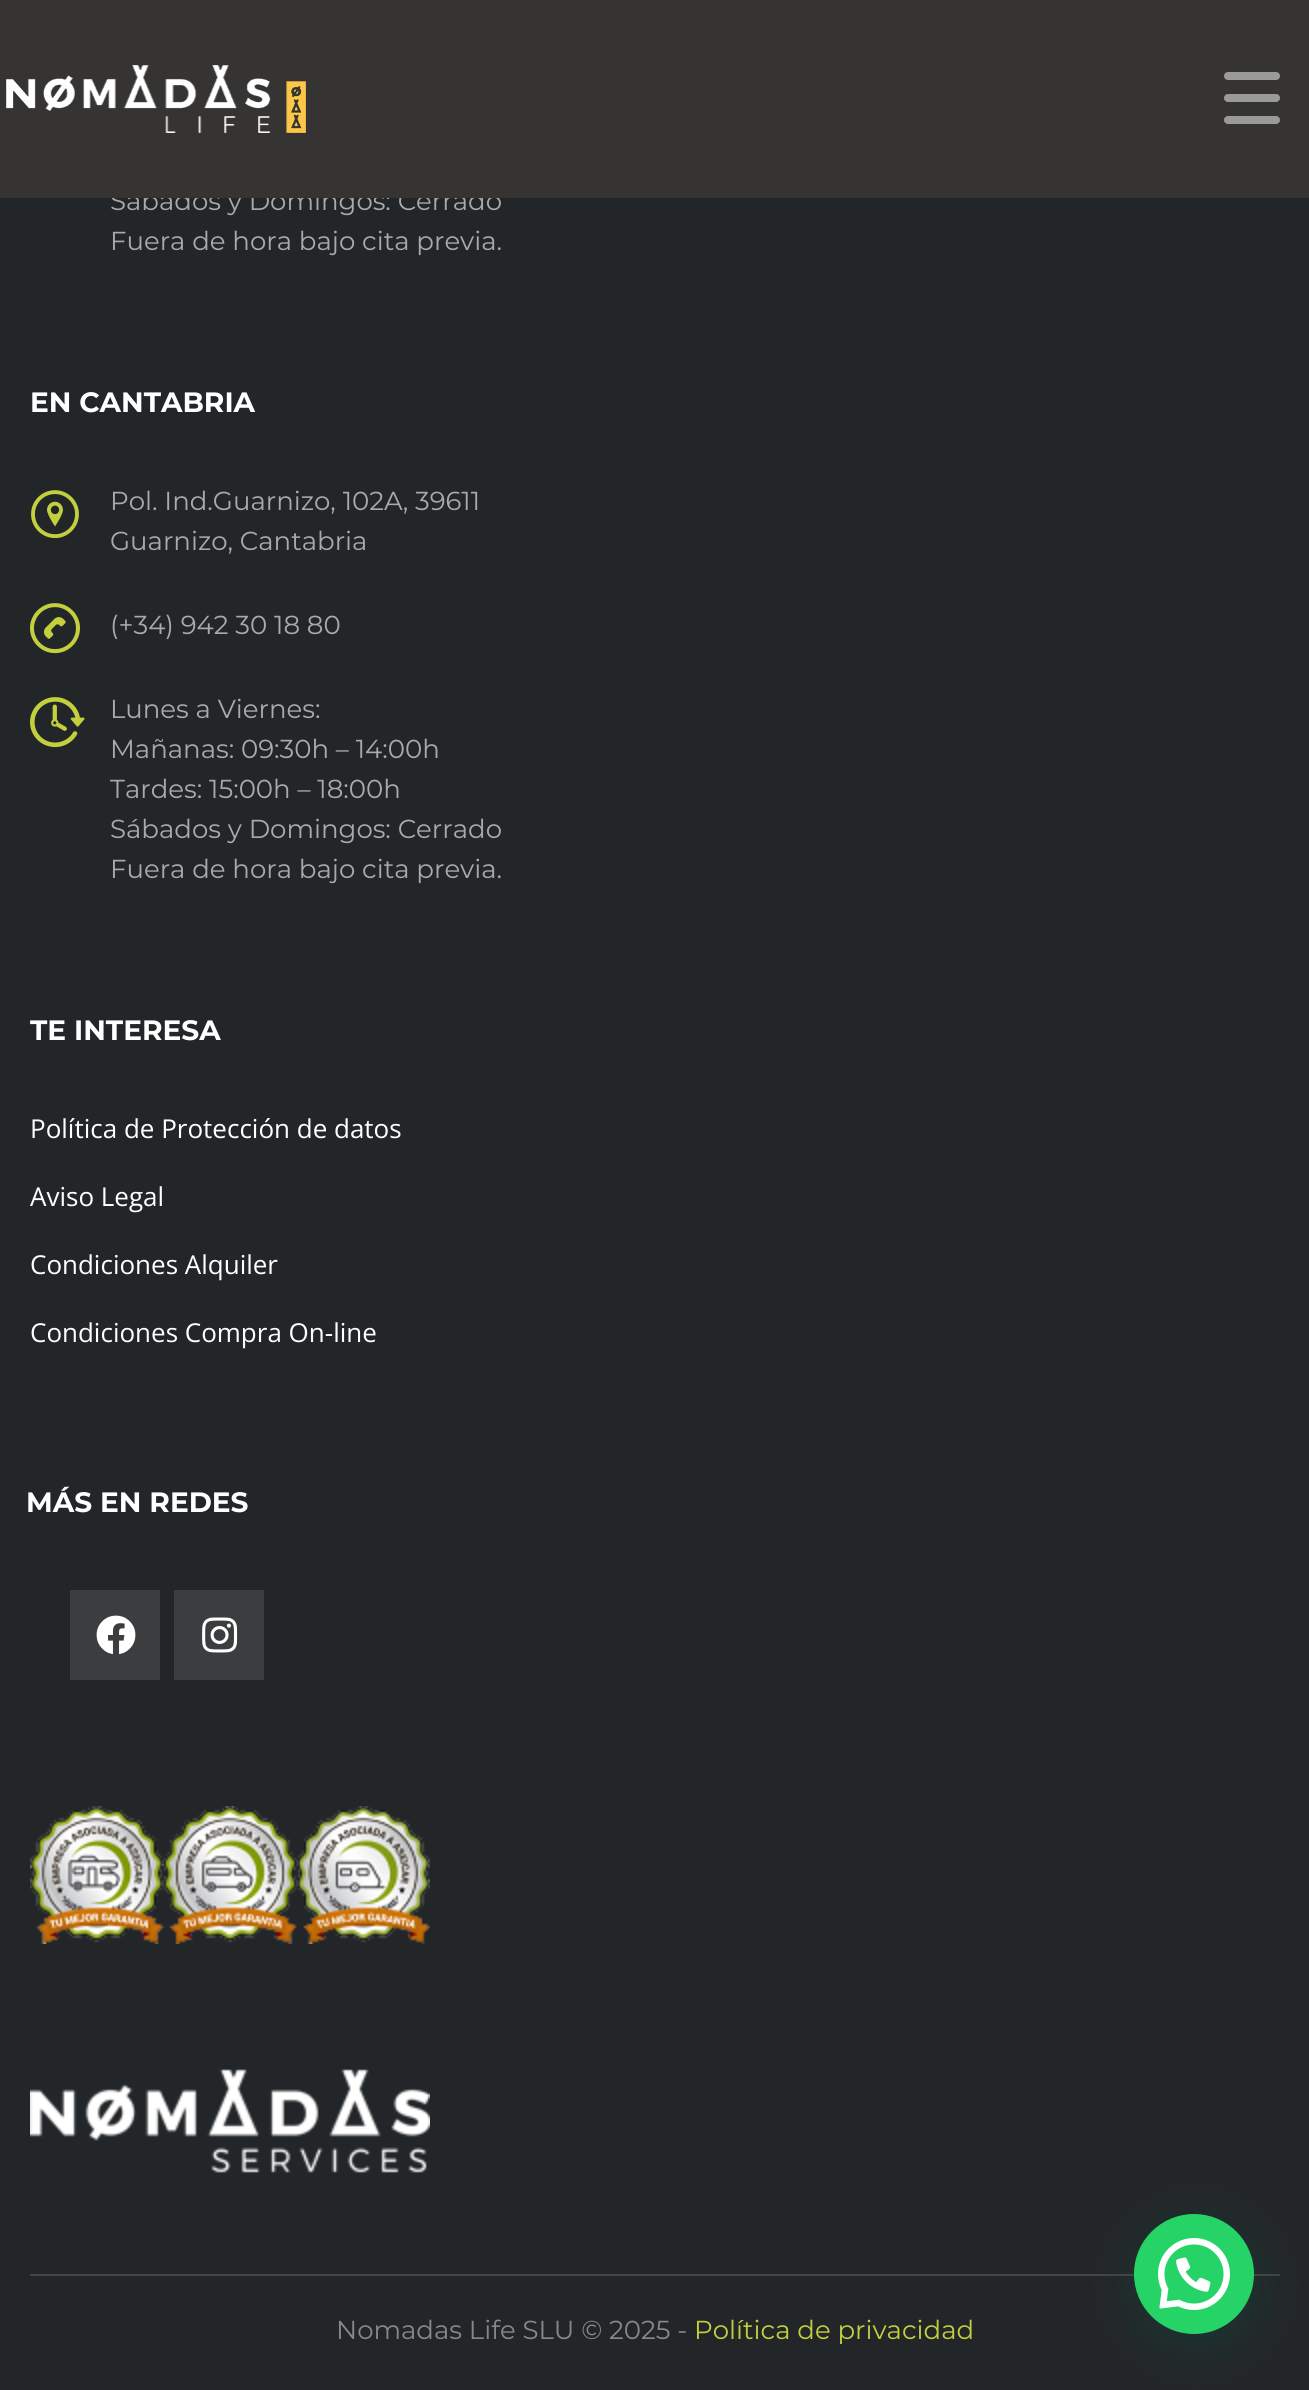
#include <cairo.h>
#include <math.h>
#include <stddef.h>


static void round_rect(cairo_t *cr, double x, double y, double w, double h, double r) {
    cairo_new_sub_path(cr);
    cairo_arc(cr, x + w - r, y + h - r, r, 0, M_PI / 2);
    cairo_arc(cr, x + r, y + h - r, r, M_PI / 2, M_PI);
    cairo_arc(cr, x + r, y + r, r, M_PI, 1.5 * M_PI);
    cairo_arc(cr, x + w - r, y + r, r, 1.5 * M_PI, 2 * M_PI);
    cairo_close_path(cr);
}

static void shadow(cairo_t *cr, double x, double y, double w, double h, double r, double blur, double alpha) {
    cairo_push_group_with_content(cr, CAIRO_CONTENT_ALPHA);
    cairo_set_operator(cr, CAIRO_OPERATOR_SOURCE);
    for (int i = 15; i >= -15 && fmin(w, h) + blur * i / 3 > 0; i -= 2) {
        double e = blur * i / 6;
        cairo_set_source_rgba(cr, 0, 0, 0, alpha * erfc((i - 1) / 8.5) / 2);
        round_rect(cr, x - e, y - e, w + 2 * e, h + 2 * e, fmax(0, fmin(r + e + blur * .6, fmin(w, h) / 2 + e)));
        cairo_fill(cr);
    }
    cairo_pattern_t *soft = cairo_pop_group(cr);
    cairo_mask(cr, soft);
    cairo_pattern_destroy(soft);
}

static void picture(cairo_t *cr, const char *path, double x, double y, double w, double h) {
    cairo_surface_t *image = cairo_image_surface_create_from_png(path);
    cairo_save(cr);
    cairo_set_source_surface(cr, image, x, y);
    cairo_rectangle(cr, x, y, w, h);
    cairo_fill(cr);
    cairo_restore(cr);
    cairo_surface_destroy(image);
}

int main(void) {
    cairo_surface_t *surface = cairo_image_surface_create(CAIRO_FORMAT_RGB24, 1309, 2390);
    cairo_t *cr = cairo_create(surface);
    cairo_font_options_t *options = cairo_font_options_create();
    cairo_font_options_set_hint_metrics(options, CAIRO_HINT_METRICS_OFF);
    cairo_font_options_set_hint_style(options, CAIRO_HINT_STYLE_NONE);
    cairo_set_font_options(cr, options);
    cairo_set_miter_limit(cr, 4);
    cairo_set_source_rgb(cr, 0.137, 0.149, 0.157);
    cairo_paint(cr);
    cairo_select_font_face(cr, "Montserrat", CAIRO_FONT_SLANT_NORMAL, CAIRO_FONT_WEIGHT_NORMAL);
    cairo_set_font_size(cr, 26);
    cairo_set_source_rgb(cr, 0.667, 0.667, 0.667);
    cairo_move_to(cr, 110, 210);
    cairo_show_text(cr, "Sábados y Domingos: Cerrado");
    cairo_set_source_rgb(cr, 0.208, 0.204, 0.2);
    cairo_rectangle(cr, 0, 0, 1309, 198);
    cairo_fill(cr);
    picture(cr, "img1.png", 6, 65, 300, 68);
    cairo_set_source_rgb(cr, 0.604, 0.604, 0.6);
    round_rect(cr, 1224, 72, 56, 8, 4);
    cairo_fill(cr);
    round_rect(cr, 1224, 94, 56, 8, 4);
    cairo_fill(cr);
    round_rect(cr, 1224, 116, 56, 8, 4);
    cairo_fill(cr);
    cairo_set_source_rgb(cr, 0.667, 0.667, 0.667);
    cairo_move_to(cr, 110, 250);
    cairo_show_text(cr, "Fuera de hora bajo cita previa.");
    cairo_select_font_face(cr, "Montserrat", CAIRO_FONT_SLANT_NORMAL, CAIRO_FONT_WEIGHT_BOLD);
    cairo_set_font_size(cr, 28);
    cairo_set_source_rgb(cr, 1, 1, 1);
    cairo_move_to(cr, 30, 412);
    cairo_show_text(cr, "EN CANTABRIA");
    picture(cr, "img2.png", 31, 490, 48, 48);
    cairo_select_font_face(cr, "Montserrat", CAIRO_FONT_SLANT_NORMAL, CAIRO_FONT_WEIGHT_NORMAL);
    cairo_set_font_size(cr, 26);
    cairo_set_source_rgb(cr, 0.667, 0.667, 0.667);
    cairo_move_to(cr, 110, 510);
    cairo_show_text(cr, "Pol. Ind.Guarnizo, 102A, 39611");
    cairo_move_to(cr, 110, 550);
    cairo_show_text(cr, "Guarnizo, Cantabria");
    picture(cr, "img3.png", 30, 603, 50, 51);
    cairo_move_to(cr, 110, 634);
    cairo_show_text(cr, "(+34) 942 30 18 80");
    picture(cr, "img4.png", 30, 697, 55, 51);
    cairo_move_to(cr, 110, 718);
    cairo_show_text(cr, "Lunes a Viernes:");
    cairo_move_to(cr, 110, 758);
    cairo_show_text(cr, "Mañanas: 09:30h – 14:00h");
    cairo_move_to(cr, 110, 798);
    cairo_show_text(cr, "Tardes: 15:00h – 18:00h");
    cairo_move_to(cr, 110, 838);
    cairo_show_text(cr, "Sábados y Domingos: Cerrado");
    cairo_move_to(cr, 110, 878);
    cairo_show_text(cr, "Fuera de hora bajo cita previa.");
    cairo_select_font_face(cr, "Montserrat", CAIRO_FONT_SLANT_NORMAL, CAIRO_FONT_WEIGHT_BOLD);
    cairo_set_font_size(cr, 28);
    cairo_set_source_rgb(cr, 1, 1, 1);
    cairo_move_to(cr, 30, 1040);
    cairo_show_text(cr, "TE INTERESA");
    cairo_select_font_face(cr, "Open Sans", CAIRO_FONT_SLANT_NORMAL, CAIRO_FONT_WEIGHT_NORMAL);
    cairo_set_font_size(cr, 26);
    cairo_move_to(cr, 30, 1138);
    cairo_show_text(cr, "Política de Protección de datos");
    cairo_move_to(cr, 30, 1206);
    cairo_show_text(cr, "Aviso Legal");
    cairo_move_to(cr, 30, 1274);
    cairo_show_text(cr, "Condiciones Alquiler");
    cairo_move_to(cr, 30, 1342);
    cairo_show_text(cr, "Condiciones Compra On-line");
    cairo_select_font_face(cr, "Montserrat", CAIRO_FONT_SLANT_NORMAL, CAIRO_FONT_WEIGHT_BOLD);
    cairo_set_font_size(cr, 28);
    cairo_move_to(cr, 26, 1512);
    cairo_show_text(cr, "MÁS EN REDES");
    cairo_set_source_rgb(cr, 0.231, 0.239, 0.247);
    cairo_rectangle(cr, 70, 1590, 90, 90);
    cairo_fill(cr);
    picture(cr, "img5.png", 96, 1615, 40, 40);
    cairo_rectangle(cr, 174, 1590, 90, 90);
    cairo_fill(cr);
    picture(cr, "img6.png", 202, 1617, 36, 36);
    picture(cr, "img7.png", 30, 1806, 400, 138);
    picture(cr, "img8.png", 30, 2069, 400, 104);
    cairo_set_source_rgb(cr, 0.267, 0.267, 0.267);
    cairo_rectangle(cr, 30, 2274, 1250, 2);
    cairo_fill(cr);
    cairo_select_font_face(cr, "Montserrat", CAIRO_FONT_SLANT_NORMAL, CAIRO_FONT_WEIGHT_NORMAL);
    cairo_set_font_size(cr, 26);
    cairo_set_source_rgb(cr, 0.533, 0.533, 0.533);
    cairo_move_to(cr, 336, 2339);
    cairo_show_text(cr, "Nomadas Life SLU © 2025 -");
    cairo_set_source_rgb(cr, 0.769, 0.812, 0.239);
    cairo_move_to(cr, 694, 2339);
    cairo_show_text(cr, "Política de privacidad");
    cairo_set_source_rgb(cr, 0.027, 0.369, 0.329);
    shadow(cr, 1136, 2226, 120, 120, 60, 24, 0.24);
    cairo_set_source_rgb(cr, 0.145, 0.827, 0.4);
    cairo_arc(cr, 1194, 2274, 60, 0, 2 * M_PI);
    cairo_fill(cr);
    picture(cr, "img9.png", 1158, 2238, 72, 72);
    cairo_surface_write_to_png(surface, "page.png");
    cairo_font_options_destroy(options);
    cairo_destroy(cr);
    cairo_surface_destroy(surface);
    return 0;
}
